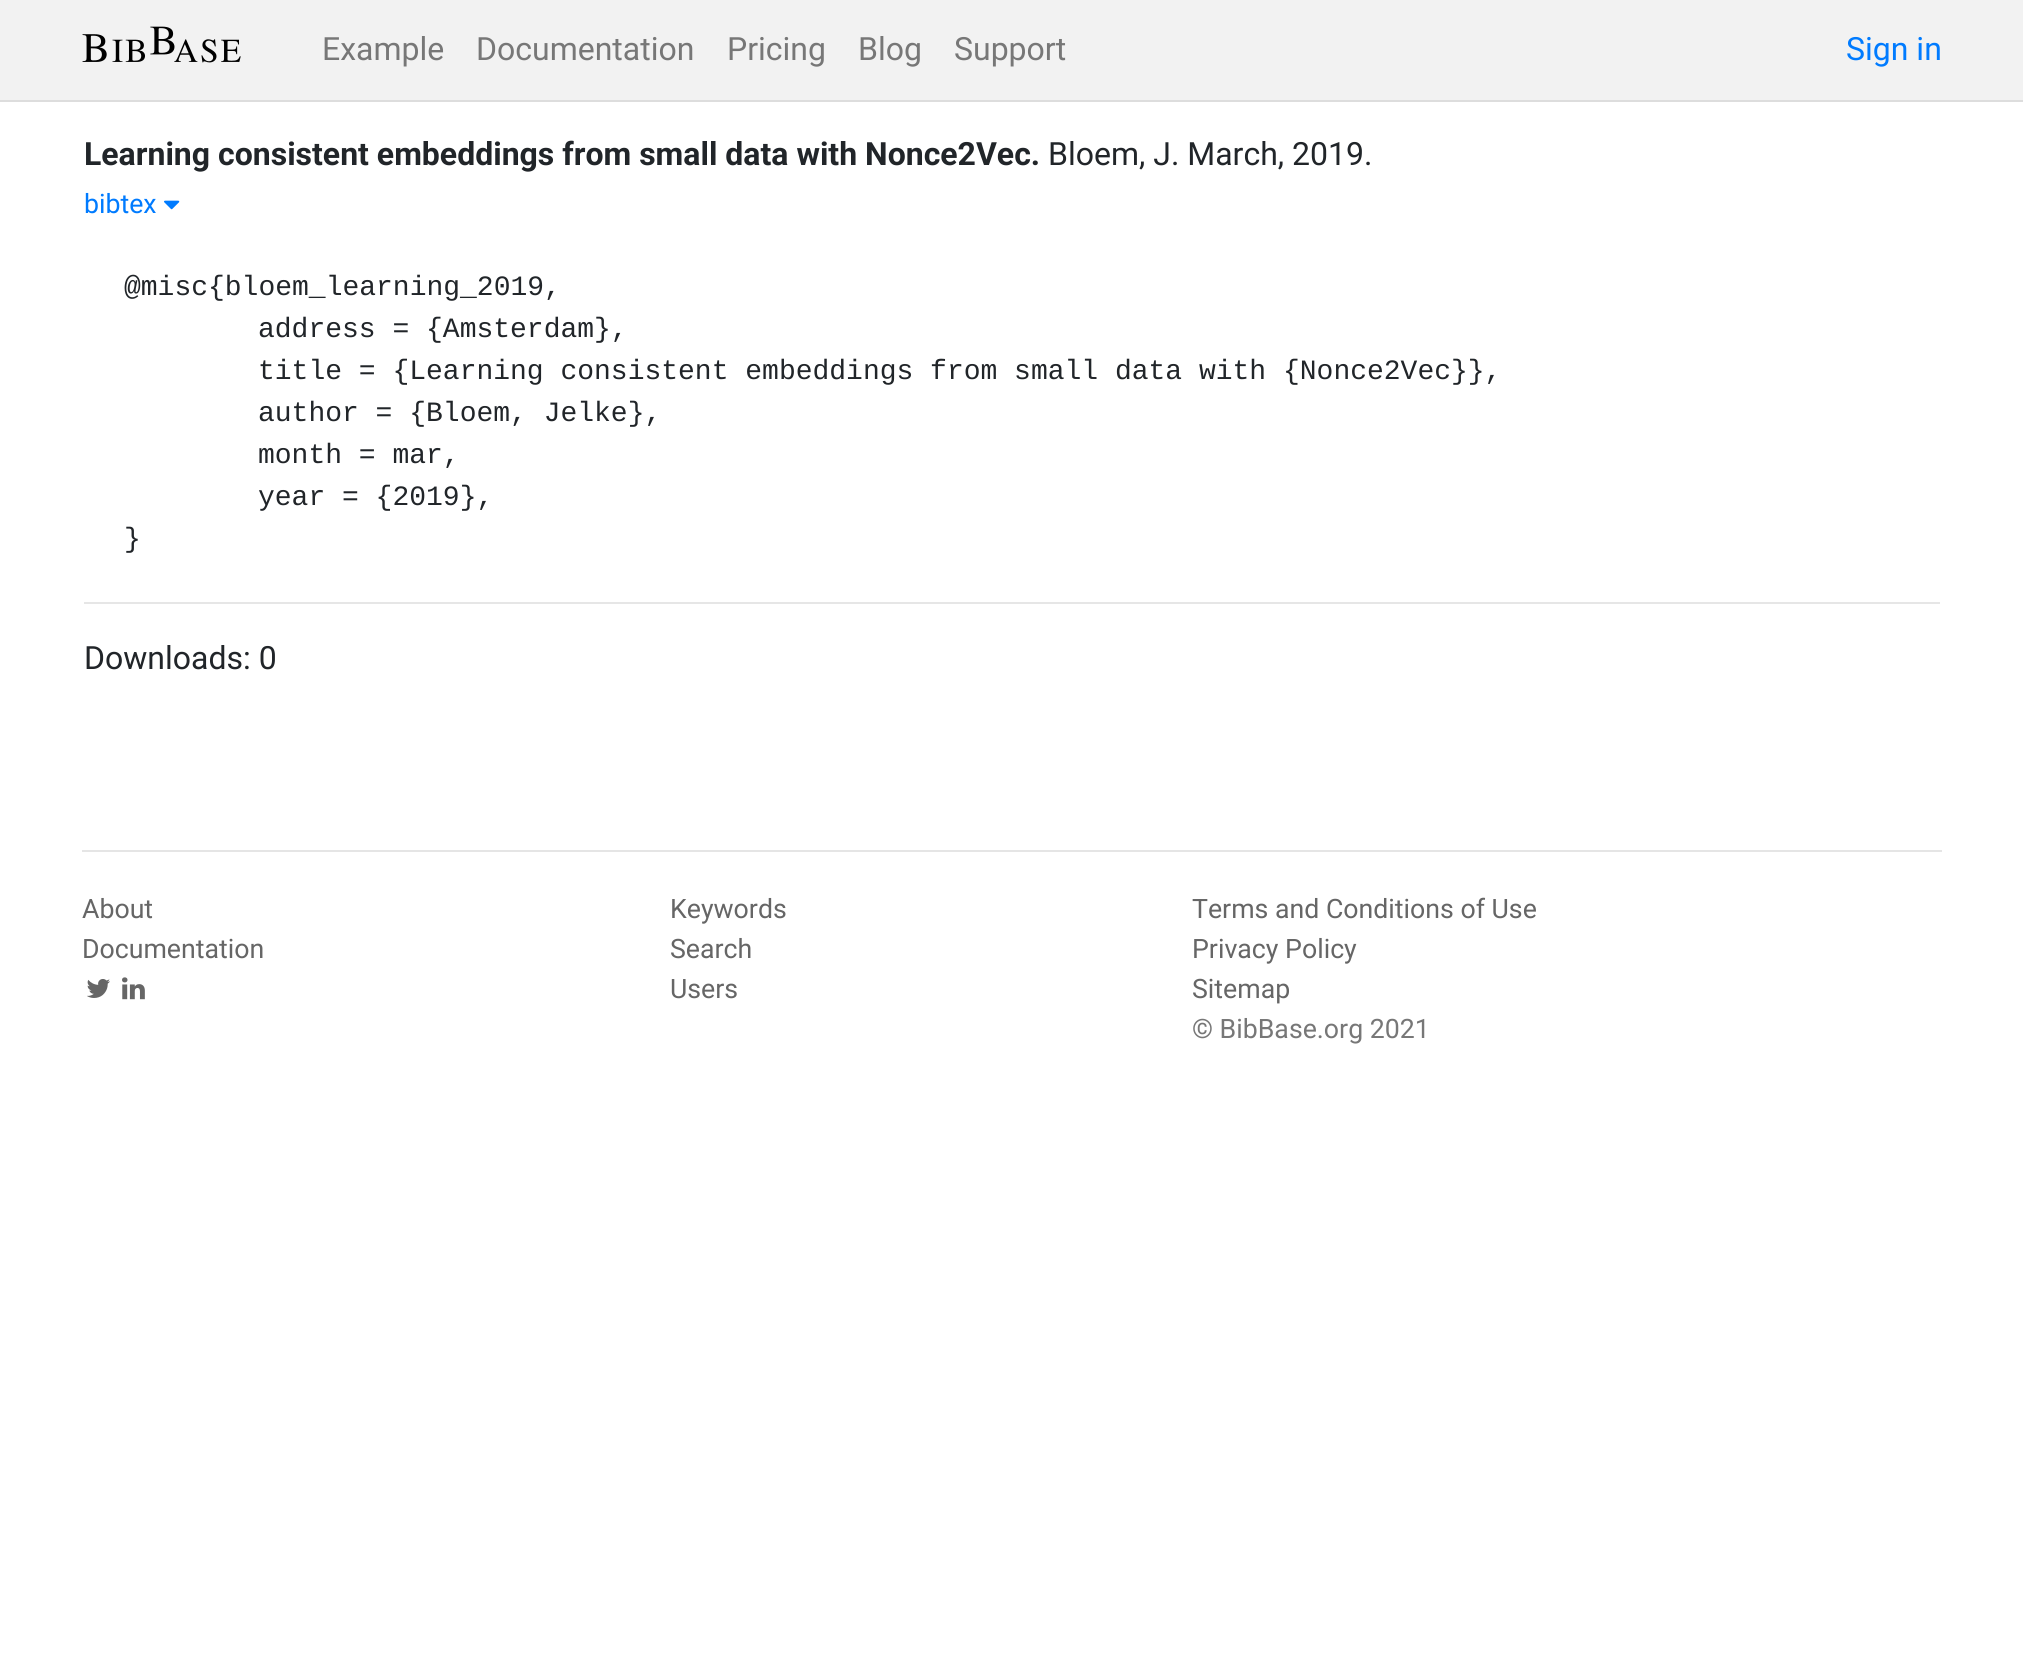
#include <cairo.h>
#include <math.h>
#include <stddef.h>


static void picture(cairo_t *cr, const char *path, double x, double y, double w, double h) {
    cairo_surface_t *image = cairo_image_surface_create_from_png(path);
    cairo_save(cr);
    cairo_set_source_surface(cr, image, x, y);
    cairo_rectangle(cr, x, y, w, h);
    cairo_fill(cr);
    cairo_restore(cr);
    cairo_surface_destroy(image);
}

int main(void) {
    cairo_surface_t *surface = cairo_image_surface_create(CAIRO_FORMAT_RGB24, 2023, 1677);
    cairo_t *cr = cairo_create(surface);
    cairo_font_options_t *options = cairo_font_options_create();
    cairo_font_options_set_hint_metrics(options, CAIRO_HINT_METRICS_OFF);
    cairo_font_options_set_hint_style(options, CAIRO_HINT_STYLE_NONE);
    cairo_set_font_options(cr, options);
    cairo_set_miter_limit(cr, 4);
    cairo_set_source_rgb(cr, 1, 1, 1);
    cairo_paint(cr);
    cairo_set_source_rgb(cr, 0.949, 0.949, 0.949);
    cairo_rectangle(cr, 0, 0, 2023, 100);
    cairo_fill(cr);
    cairo_set_source_rgb(cr, 0.867, 0.867, 0.867);
    cairo_rectangle(cr, 0, 100, 2023, 2);
    cairo_fill(cr);
    picture(cr, "img1.png", 82, 26, 159, 37);
    cairo_select_font_face(cr, "Roboto", CAIRO_FONT_SLANT_NORMAL, CAIRO_FONT_WEIGHT_NORMAL);
    cairo_set_font_size(cr, 32);
    cairo_set_source_rgb(cr, 0.467, 0.467, 0.467);
    cairo_move_to(cr, 322, 60);
    cairo_show_text(cr, "Example");
    cairo_move_to(cr, 476, 60);
    cairo_show_text(cr, "Documentation");
    cairo_move_to(cr, 727, 60);
    cairo_show_text(cr, "Pricing");
    cairo_move_to(cr, 858, 60);
    cairo_show_text(cr, "Blog");
    cairo_move_to(cr, 954, 60);
    cairo_show_text(cr, "Support");
    cairo_set_source_rgb(cr, 0, 0.482, 1);
    cairo_move_to(cr, 1846, 60);
    cairo_show_text(cr, "Sign in");
    cairo_select_font_face(cr, "Roboto", CAIRO_FONT_SLANT_NORMAL, CAIRO_FONT_WEIGHT_BOLD);
    cairo_set_source_rgb(cr, 0.129, 0.145, 0.161);
    cairo_move_to(cr, 84, 165);
    cairo_show_text(cr, "Learning consistent embeddings from small data with Nonce2Vec.");
    cairo_select_font_face(cr, "Roboto", CAIRO_FONT_SLANT_NORMAL, CAIRO_FONT_WEIGHT_NORMAL);
    cairo_move_to(cr, 1048, 165);
    cairo_show_text(cr, "Bloem, J. March, 2019.");
    cairo_set_font_size(cr, 26.7);
    cairo_set_source_rgb(cr, 0, 0.482, 1);
    cairo_move_to(cr, 84, 213);
    cairo_show_text(cr, "bibtex");
    picture(cr, "img2.png", 164, 200, 16, 10);
    cairo_select_font_face(cr, "Liberation Mono", CAIRO_FONT_SLANT_NORMAL, CAIRO_FONT_WEIGHT_NORMAL);
    cairo_set_font_size(cr, 28);
    cairo_set_source_rgb(cr, 0.129, 0.145, 0.161);
    cairo_move_to(cr, 124, 295);
    cairo_show_text(cr, "@misc{bloem_learning_2019,");
    cairo_move_to(cr, 258, 337);
    cairo_show_text(cr, "address = {Amsterdam},");
    cairo_move_to(cr, 258, 379);
    cairo_show_text(cr, "title = {Learning consistent embeddings from small data with {Nonce2Vec}},");
    cairo_move_to(cr, 258, 421);
    cairo_show_text(cr, "author = {Bloem, Jelke},");
    cairo_move_to(cr, 258, 463);
    cairo_show_text(cr, "month = mar,");
    cairo_move_to(cr, 258, 505);
    cairo_show_text(cr, "year = {2019},");
    cairo_move_to(cr, 124, 547);
    cairo_show_text(cr, "}");
    cairo_set_source_rgb(cr, 0.902, 0.902, 0.902);
    cairo_rectangle(cr, 84, 602, 1856, 2);
    cairo_fill(cr);
    cairo_select_font_face(cr, "Roboto", CAIRO_FONT_SLANT_NORMAL, CAIRO_FONT_WEIGHT_NORMAL);
    cairo_set_font_size(cr, 32);
    cairo_set_source_rgb(cr, 0.129, 0.145, 0.161);
    cairo_move_to(cr, 84, 669);
    cairo_show_text(cr, "Downloads: 0");
    cairo_set_source_rgb(cr, 0.898, 0.898, 0.898);
    cairo_rectangle(cr, 82, 850, 1860, 2);
    cairo_fill(cr);
    cairo_set_font_size(cr, 26.7);
    cairo_set_source_rgb(cr, 0.4, 0.4, 0.4);
    cairo_move_to(cr, 82, 918);
    cairo_show_text(cr, "About");
    cairo_move_to(cr, 82, 958);
    cairo_show_text(cr, "Documentation");
    picture(cr, "img3.png", 87, 979, 23, 19);
    picture(cr, "img4.png", 122, 977, 23, 23);
    cairo_move_to(cr, 670, 918);
    cairo_show_text(cr, "Keywords");
    cairo_move_to(cr, 670, 958);
    cairo_show_text(cr, "Search");
    cairo_move_to(cr, 670, 998);
    cairo_show_text(cr, "Users");
    cairo_move_to(cr, 1192, 918);
    cairo_show_text(cr, "Terms and Conditions of Use");
    cairo_move_to(cr, 1192, 958);
    cairo_show_text(cr, "Privacy Policy");
    cairo_move_to(cr, 1192, 998);
    cairo_show_text(cr, "Sitemap");
    cairo_set_source_rgb(cr, 0.467, 0.467, 0.467);
    cairo_move_to(cr, 1192, 1038);
    cairo_show_text(cr, "© BibBase.org 2021");
    cairo_surface_write_to_png(surface, "page.png");
    cairo_font_options_destroy(options);
    cairo_destroy(cr);
    cairo_surface_destroy(surface);
    return 0;
}
